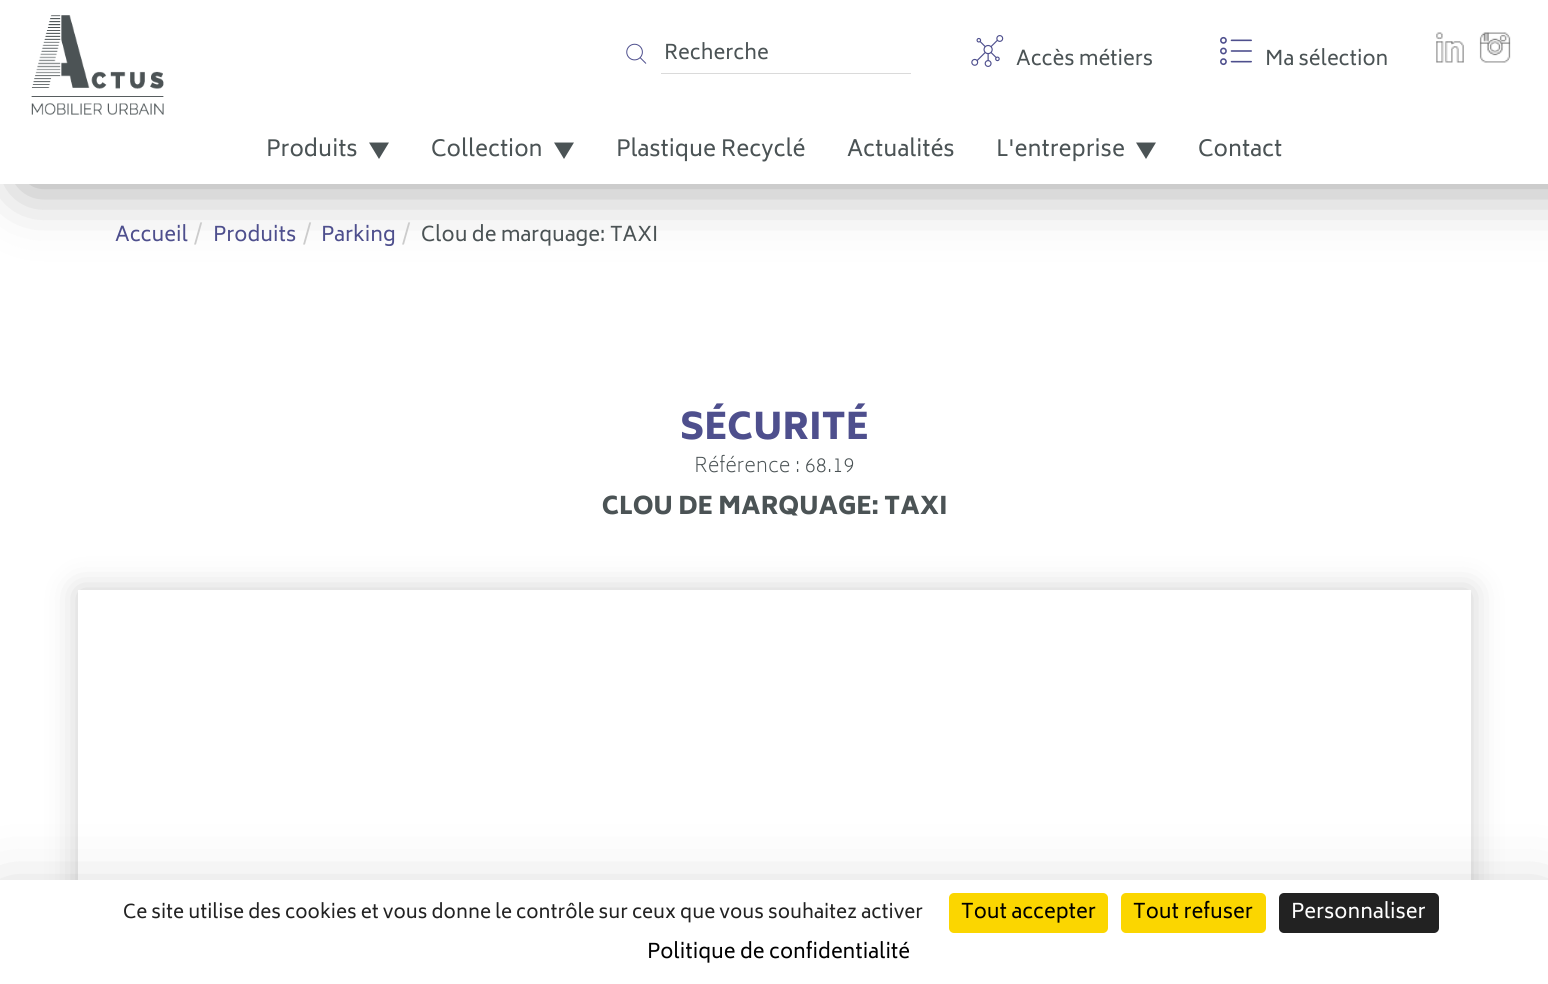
#include <cairo.h>
#include <math.h>
#include <stddef.h>


static void round_rect(cairo_t *cr, double x, double y, double w, double h, double r) {
    cairo_new_sub_path(cr);
    cairo_arc(cr, x + w - r, y + h - r, r, 0, M_PI / 2);
    cairo_arc(cr, x + r, y + h - r, r, M_PI / 2, M_PI);
    cairo_arc(cr, x + r, y + r, r, M_PI, 1.5 * M_PI);
    cairo_arc(cr, x + w - r, y + r, r, 1.5 * M_PI, 2 * M_PI);
    cairo_close_path(cr);
}

static void shadow(cairo_t *cr, double x, double y, double w, double h, double r, double blur, double alpha) {
    cairo_push_group_with_content(cr, CAIRO_CONTENT_ALPHA);
    cairo_set_operator(cr, CAIRO_OPERATOR_SOURCE);
    for (int i = 15; i >= -15 && fmin(w, h) + blur * i / 3 > 0; i -= 2) {
        double e = blur * i / 6;
        cairo_set_source_rgba(cr, 0, 0, 0, alpha * erfc((i - 1) / 8.5) / 2);
        round_rect(cr, x - e, y - e, w + 2 * e, h + 2 * e, fmax(0, fmin(r + e + blur * .6, fmin(w, h) / 2 + e)));
        cairo_fill(cr);
    }
    cairo_pattern_t *soft = cairo_pop_group(cr);
    cairo_mask(cr, soft);
    cairo_pattern_destroy(soft);
}

static void picture(cairo_t *cr, const char *path, double x, double y, double w, double h) {
    cairo_surface_t *image = cairo_image_surface_create_from_png(path);
    cairo_save(cr);
    cairo_set_source_surface(cr, image, x, y);
    cairo_rectangle(cr, x, y, w, h);
    cairo_fill(cr);
    cairo_restore(cr);
    cairo_surface_destroy(image);
}

int main(void) {
    cairo_surface_t *surface = cairo_image_surface_create(CAIRO_FORMAT_RGB24, 1548, 984);
    cairo_t *cr = cairo_create(surface);
    cairo_font_options_t *options = cairo_font_options_create();
    cairo_font_options_set_hint_metrics(options, CAIRO_HINT_METRICS_OFF);
    cairo_font_options_set_hint_style(options, CAIRO_HINT_STYLE_NONE);
    cairo_set_font_options(cr, options);
    cairo_set_miter_limit(cr, 4);
    cairo_set_source_rgb(cr, 1, 1, 1);
    cairo_paint(cr);
    cairo_save(cr);
    cairo_set_fill_rule(cr, CAIRO_FILL_RULE_EVEN_ODD);
    cairo_new_path(cr);
    cairo_move_to(cr, 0, 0);
    cairo_line_to(cr, 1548, 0);
    cairo_line_to(cr, 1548, 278);
    cairo_line_to(cr, 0, 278);
    cairo_close_path(cr);
    cairo_move_to(cr, 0, 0);
    cairo_line_to(cr, 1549, 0);
    cairo_line_to(cr, 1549, 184);
    cairo_line_to(cr, 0, 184);
    cairo_close_path(cr);
    cairo_clip(cr);
    cairo_set_source_rgb(cr, 0, 0, 0);
    shadow(cr, 25, 0, 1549, 184, 0, 31, 0.4);
    cairo_restore(cr);
    cairo_set_source_rgba(cr, 1, 1, 1, 0.9);
    cairo_rectangle(cr, 1, 183, 1547, 1);
    cairo_fill(cr);
    picture(cr, "img1.png", 31, 15, 133, 100);
    picture(cr, "img2.png", 626, 43, 21, 21);
    cairo_set_source_rgb(cr, 0.855, 0.855, 0.855);
    cairo_rectangle(cr, 661, 73, 250, 1);
    cairo_fill(cr);
    cairo_select_font_face(cr, "Biryani", CAIRO_FONT_SLANT_NORMAL, CAIRO_FONT_WEIGHT_NORMAL);
    cairo_set_font_size(cr, 20);
    cairo_set_source_rgb(cr, 0.294, 0.325, 0.333);
    cairo_move_to(cr, 664, 59);
    cairo_show_text(cr, "Recherche");
    picture(cr, "img3.png", 971, 35, 33, 32);
    cairo_move_to(cr, 1016, 65);
    cairo_show_text(cr, "Accès métiers");
    picture(cr, "img4.png", 1220, 36, 32, 30);
    cairo_move_to(cr, 1265, 65);
    cairo_show_text(cr, "Ma sélection");
    picture(cr, "img5.png", 1436, 32, 28, 31);
    picture(cr, "img6.png", 1479, 32, 32, 31);
    cairo_set_font_size(cr, 22);
    cairo_move_to(cr, 266, 156);
    cairo_show_text(cr, "Produits");
    cairo_new_path(cr);
    cairo_move_to(cr, 369, 142.5);
    cairo_line_to(cr, 389, 142.5);
    cairo_line_to(cr, 379, 159);
    cairo_close_path(cr);
    cairo_fill(cr);
    cairo_move_to(cr, 431, 156);
    cairo_show_text(cr, "Collection");
    cairo_new_path(cr);
    cairo_move_to(cr, 554, 142.5);
    cairo_line_to(cr, 574, 142.5);
    cairo_line_to(cr, 564, 159);
    cairo_close_path(cr);
    cairo_fill(cr);
    cairo_move_to(cr, 616, 156);
    cairo_show_text(cr, "Plastique Recyclé");
    cairo_move_to(cr, 847, 156);
    cairo_show_text(cr, "Actualités");
    cairo_move_to(cr, 996, 156);
    cairo_show_text(cr, "L'entreprise");
    cairo_new_path(cr);
    cairo_move_to(cr, 1136, 142.5);
    cairo_line_to(cr, 1156, 142.5);
    cairo_line_to(cr, 1146, 159);
    cairo_close_path(cr);
    cairo_fill(cr);
    cairo_move_to(cr, 1198, 156);
    cairo_show_text(cr, "Contact");
    cairo_set_font_size(cr, 20);
    cairo_set_source_rgb(cr, 0.306, 0.31, 0.553);
    cairo_move_to(cr, 115, 241);
    cairo_show_text(cr, "Accueil");
    cairo_set_source_rgb(cr, 0.8, 0.8, 0.8);
    cairo_move_to(cr, 194, 241);
    cairo_show_text(cr, "/");
    cairo_set_source_rgb(cr, 0.306, 0.31, 0.553);
    cairo_move_to(cr, 213, 241);
    cairo_show_text(cr, "Produits");
    cairo_set_source_rgb(cr, 0.8, 0.8, 0.8);
    cairo_move_to(cr, 303, 241);
    cairo_show_text(cr, "/");
    cairo_set_source_rgb(cr, 0.306, 0.31, 0.553);
    cairo_move_to(cr, 321, 241);
    cairo_show_text(cr, "Parking");
    cairo_set_source_rgb(cr, 0.8, 0.8, 0.8);
    cairo_move_to(cr, 402, 241);
    cairo_show_text(cr, "/");
    cairo_set_source_rgb(cr, 0.294, 0.325, 0.333);
    cairo_move_to(cr, 421, 241);
    cairo_show_text(cr, "Clou de marquage: TAXI");
    cairo_select_font_face(cr, "Biryani Black", CAIRO_FONT_SLANT_NORMAL, CAIRO_FONT_WEIGHT_NORMAL);
    cairo_set_font_size(cr, 36);
    cairo_set_source_rgb(cr, 0.306, 0.31, 0.553);
    cairo_move_to(cr, 680, 439);
    cairo_show_text(cr, "SÉCURITÉ");
    cairo_select_font_face(cr, "Biryani Light", CAIRO_FONT_SLANT_NORMAL, CAIRO_FONT_WEIGHT_NORMAL);
    cairo_set_font_size(cr, 20);
    cairo_set_source_rgb(cr, 0.294, 0.325, 0.333);
    cairo_move_to(cr, 694, 472);
    cairo_show_text(cr, "Référence : 68.19");
    cairo_select_font_face(cr, "Biryani Black", CAIRO_FONT_SLANT_NORMAL, CAIRO_FONT_WEIGHT_NORMAL);
    cairo_set_font_size(cr, 24);
    cairo_move_to(cr, 602, 514);
    cairo_show_text(cr, "CLOU DE MARQUAGE: TAXI");
    cairo_save(cr);
    cairo_set_fill_rule(cr, CAIRO_FILL_RULE_EVEN_ODD);
    cairo_new_path(cr);
    cairo_move_to(cr, 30, 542);
    cairo_line_to(cr, 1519, 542);
    cairo_line_to(cr, 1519, 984);
    cairo_line_to(cr, 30, 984);
    cairo_close_path(cr);
    cairo_move_to(cr, 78, 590);
    cairo_line_to(cr, 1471, 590);
    cairo_line_to(cr, 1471, 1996);
    cairo_line_to(cr, 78, 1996);
    cairo_close_path(cr);
    cairo_clip(cr);
    cairo_set_source_rgb(cr, 0, 0, 0);
    shadow(cr, 78, 590, 1393, 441, 0, 15.5, 0.2);
    cairo_restore(cr);
    cairo_set_source_rgb(cr, 0, 0, 0);
    shadow(cr, 0, 905, 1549, 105, 0, 37.5, 0.25);
    cairo_set_source_rgb(cr, 1, 1, 1);
    cairo_rectangle(cr, 0, 880, 1548, 104);
    cairo_fill(cr);
    cairo_select_font_face(cr, "Biryani", CAIRO_FONT_SLANT_NORMAL, CAIRO_FONT_WEIGHT_NORMAL);
    cairo_set_font_size(cr, 18.75);
    cairo_set_source_rgb(cr, 0.133, 0.133, 0.133);
    cairo_move_to(cr, 123, 918);
    cairo_show_text(cr, "Ce site utilise des cookies et vous donne le contrôle sur ceux que vous souhaitez activer");
    cairo_set_source_rgb(cr, 0.984, 0.839, 0);
    round_rect(cr, 949, 893, 159, 40, 5);
    cairo_fill(cr);
    cairo_set_font_size(cr, 20);
    cairo_set_source_rgb(cr, 0, 0, 0);
    cairo_move_to(cr, 961, 918);
    cairo_show_text(cr, "Tout accepter");
    cairo_set_source_rgb(cr, 0.984, 0.839, 0);
    round_rect(cr, 1121, 893, 145, 40, 5);
    cairo_fill(cr);
    cairo_set_source_rgb(cr, 0, 0, 0);
    cairo_move_to(cr, 1133, 918);
    cairo_show_text(cr, "Tout refuser");
    cairo_set_source_rgb(cr, 0.133, 0.133, 0.133);
    round_rect(cr, 1279, 893, 160, 40, 5);
    cairo_fill(cr);
    cairo_set_source_rgb(cr, 1, 1, 1);
    cairo_move_to(cr, 1291, 918);
    cairo_show_text(cr, "Personnaliser");
    cairo_set_source_rgb(cr, 0, 0, 0);
    cairo_move_to(cr, 647, 958);
    cairo_show_text(cr, "Politique de confidentialité");
    cairo_surface_write_to_png(surface, "page.png");
    cairo_font_options_destroy(options);
    cairo_destroy(cr);
    cairo_surface_destroy(surface);
    return 0;
}
